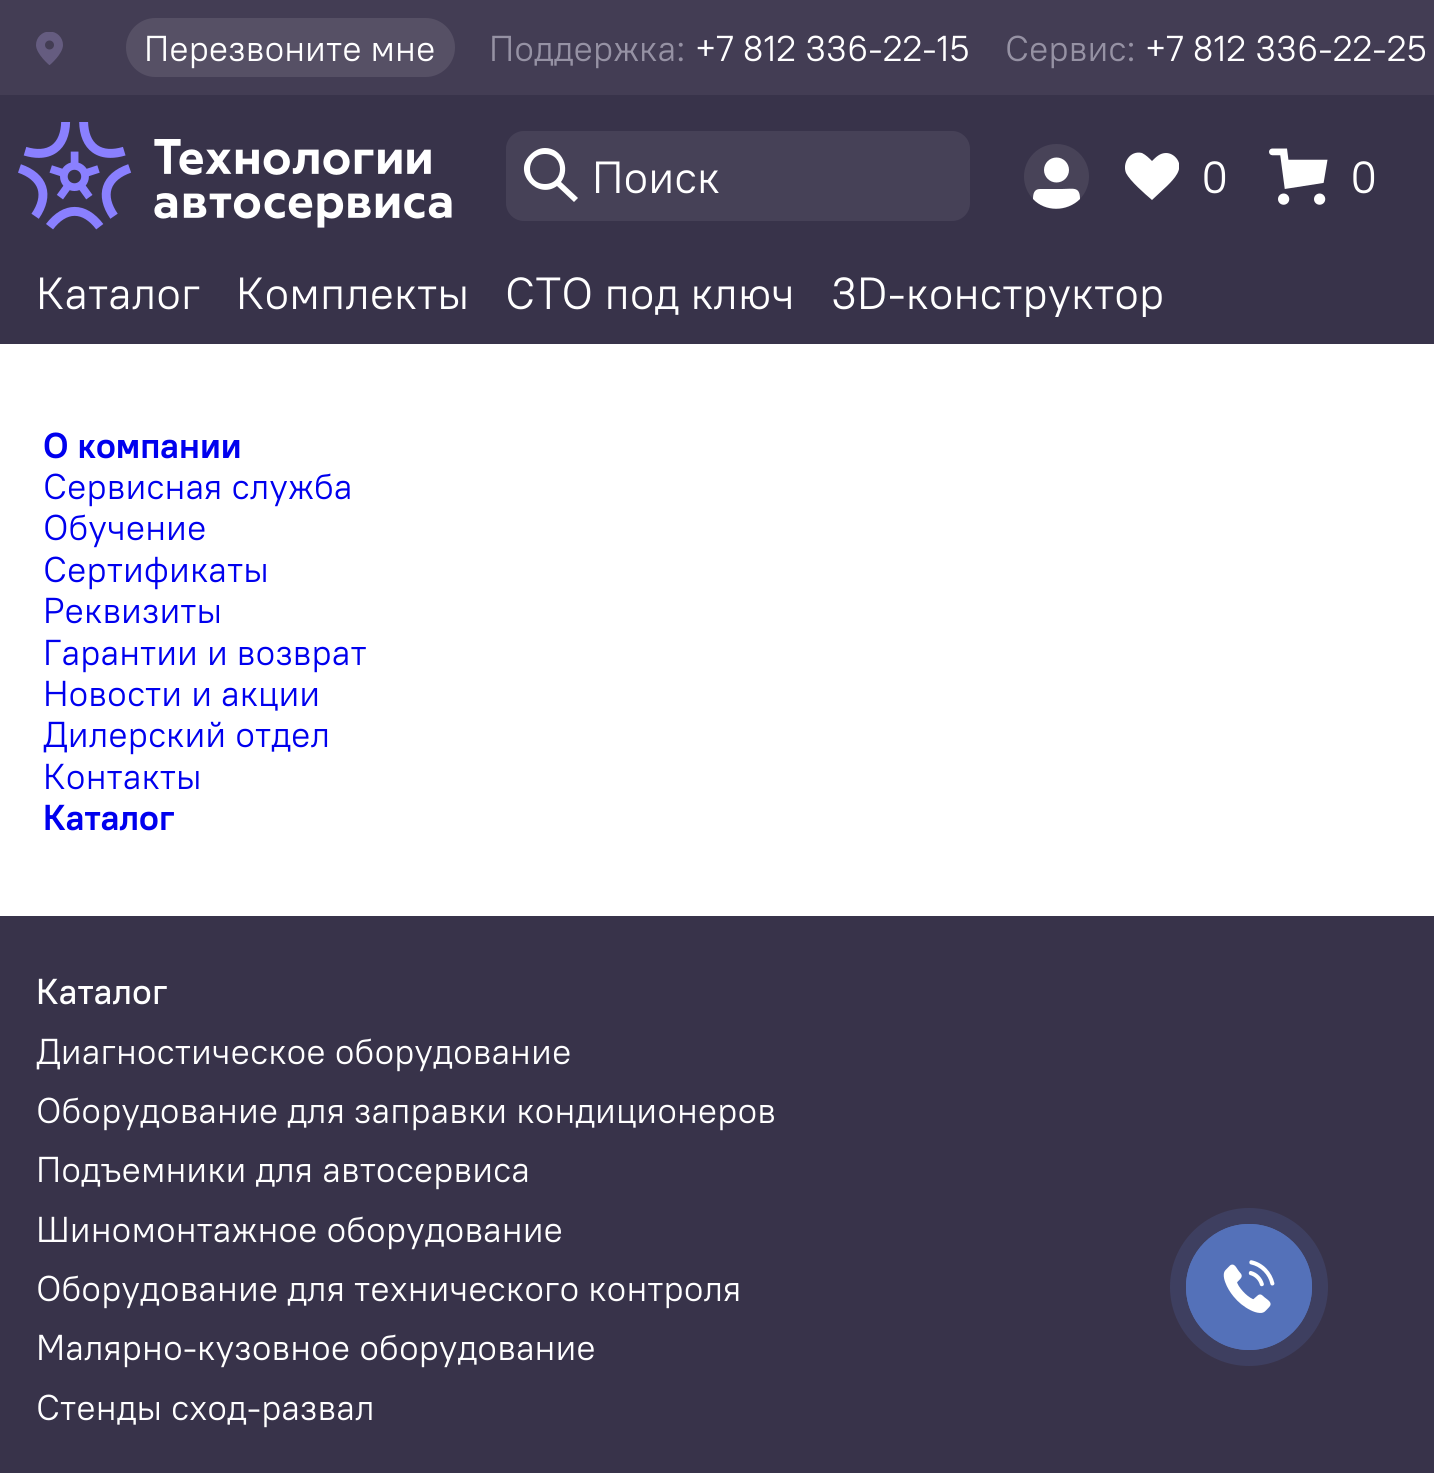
#include <cairo.h>
#include <math.h>
#include <stddef.h>


static void round_rect(cairo_t *cr, double x, double y, double w, double h, double r) {
    cairo_new_sub_path(cr);
    cairo_arc(cr, x + w - r, y + h - r, r, 0, M_PI / 2);
    cairo_arc(cr, x + r, y + h - r, r, M_PI / 2, M_PI);
    cairo_arc(cr, x + r, y + r, r, M_PI, 1.5 * M_PI);
    cairo_arc(cr, x + w - r, y + r, r, 1.5 * M_PI, 2 * M_PI);
    cairo_close_path(cr);
}

static void picture(cairo_t *cr, const char *path, double x, double y, double w, double h) {
    cairo_surface_t *image = cairo_image_surface_create_from_png(path);
    cairo_save(cr);
    cairo_set_source_surface(cr, image, x, y);
    cairo_rectangle(cr, x, y, w, h);
    cairo_fill(cr);
    cairo_restore(cr);
    cairo_surface_destroy(image);
}

int main(void) {
    cairo_surface_t *surface = cairo_image_surface_create(CAIRO_FORMAT_RGB24, 1434, 1473);
    cairo_t *cr = cairo_create(surface);
    cairo_font_options_t *options = cairo_font_options_create();
    cairo_font_options_set_hint_metrics(options, CAIRO_HINT_METRICS_OFF);
    cairo_font_options_set_hint_style(options, CAIRO_HINT_STYLE_NONE);
    cairo_set_font_options(cr, options);
    cairo_set_miter_limit(cr, 4);
    cairo_set_source_rgb(cr, 1, 1, 1);
    cairo_paint(cr);
    cairo_set_source_rgb(cr, 0.263, 0.239, 0.329);
    cairo_rectangle(cr, 0, 0, 1434, 95);
    cairo_fill(cr);
    picture(cr, "img1.png", 36, 32, 27, 33);
    cairo_set_source_rgb(cr, 0.337, 0.314, 0.396);
    round_rect(cr, 126, 18, 329, 59, 29.5);
    cairo_fill(cr);
    cairo_select_font_face(cr, "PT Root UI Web", CAIRO_FONT_SLANT_NORMAL, CAIRO_FONT_WEIGHT_NORMAL);
    cairo_set_font_size(cr, 36);
    cairo_set_source_rgb(cr, 1, 1, 1);
    cairo_move_to(cr, 144, 61);
    cairo_show_text(cr, "Перезвоните мне");
    cairo_set_source_rgb(cr, 0.588, 0.573, 0.643);
    cairo_move_to(cr, 489, 61);
    cairo_show_text(cr, "Поддержка:");
    cairo_set_source_rgb(cr, 1, 1, 1);
    cairo_move_to(cr, 695, 61);
    cairo_show_text(cr, "+7 812 336-22-15");
    cairo_set_source_rgb(cr, 0.588, 0.573, 0.643);
    cairo_move_to(cr, 1005, 61);
    cairo_show_text(cr, "Сервис:");
    cairo_set_source_rgb(cr, 1, 1, 1);
    cairo_move_to(cr, 1145, 61);
    cairo_show_text(cr, "+7 812 336-22-25");
    cairo_set_source_rgb(cr, 0.22, 0.2, 0.29);
    cairo_rectangle(cr, 0, 95, 1434, 249);
    cairo_fill(cr);
    picture(cr, "img2.png", 18, 122, 434, 108);
    cairo_set_source_rgb(cr, 0.275, 0.255, 0.341);
    round_rect(cr, 506, 131, 464, 90, 18);
    cairo_fill(cr);
    cairo_set_source_rgb(cr, 1, 1, 1);
    cairo_new_path(cr);
    cairo_move_to(cr, 545, 148);
    cairo_curve_to(cr, 562, 148, 571, 168, 561, 182);
    cairo_line_to(cr, 578, 198);
    cairo_line_to(cr, 574, 202);
    cairo_line_to(cr, 557, 186);
    cairo_curve_to(cr, 538, 200, 512, 173, 530, 155);
    cairo_curve_to(cr, 534, 151, 539, 148, 545, 148);
    cairo_close_path(cr);
    cairo_move_to(cr, 545, 154);
    cairo_curve_to(cr, 525, 154, 525, 184, 545, 184);
    cairo_curve_to(cr, 565, 184, 565, 154, 545, 154);
    cairo_close_path(cr);
    cairo_fill(cr);
    cairo_set_font_size(cr, 45);
    cairo_move_to(cr, 592, 193);
    cairo_show_text(cr, "Поиск");
    cairo_set_source_rgb(cr, 0.282, 0.263, 0.345);
    cairo_new_path(cr);
    cairo_arc(cr, 1056.5, 176.5, 32.5, 0, 2 * M_PI);
    cairo_fill(cr);
    cairo_set_source_rgb(cr, 1, 1, 1);
    cairo_arc(cr, 1056.5, 170, 12.5, 0, 2 * M_PI);
    cairo_fill(cr);
    cairo_new_path(cr);
    cairo_move_to(cr, 1040, 189);
    cairo_line_to(cr, 1062, 189);
    cairo_curve_to(cr, 1073, 189, 1080, 186, 1080, 199);
    cairo_curve_to(cr, 1067, 212, 1045, 212, 1033, 199);
    cairo_curve_to(cr, 1033, 194, 1034, 189, 1040, 189);
    cairo_close_path(cr);
    cairo_fill(cr);
    cairo_save(cr);
    cairo_rectangle(cr, 1125, 144, 54, 65);
    cairo_clip(cr);
    cairo_set_fill_rule(cr, CAIRO_FILL_RULE_EVEN_ODD);
    cairo_new_path(cr);
    cairo_move_to(cr, 1166, 153);
    cairo_curve_to(cr, 1170, 153, 1174, 155, 1177, 159);
    cairo_curve_to(cr, 1184, 169, 1174, 179, 1167, 186);
    cairo_line_to(cr, 1152, 200);
    cairo_curve_to(cr, 1145, 194, 1130, 181, 1126, 173);
    cairo_curve_to(cr, 1122, 163, 1130, 150, 1142, 153);
    cairo_curve_to(cr, 1146, 155, 1149, 158, 1152, 161);
    cairo_curve_to(cr, 1156, 157, 1160, 153, 1166, 153);
    cairo_close_path(cr);
    cairo_fill(cr);
    cairo_restore(cr);
    cairo_move_to(cr, 1201, 193);
    cairo_show_text(cr, "0");
    picture(cr, "img3.png", 1269, 148, 59, 57);
    cairo_move_to(cr, 1350, 193);
    cairo_show_text(cr, "0");
    cairo_move_to(cr, 36, 309);
    cairo_show_text(cr, "Каталог");
    cairo_move_to(cr, 236, 309);
    cairo_show_text(cr, "Комплекты");
    cairo_move_to(cr, 505, 309);
    cairo_show_text(cr, "СТО под ключ");
    cairo_save(cr);
    cairo_rectangle(cr, 0, 266, 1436, 51);
    cairo_clip(cr);
    cairo_move_to(cr, 831, 309);
    cairo_show_text(cr, "3D-конструктор");
    cairo_restore(cr);
    cairo_select_font_face(cr, "PT Root UI Web", CAIRO_FONT_SLANT_NORMAL, CAIRO_FONT_WEIGHT_BOLD);
    cairo_set_font_size(cr, 36);
    cairo_set_source_rgb(cr, 0, 0, 0.933);
    cairo_move_to(cr, 43, 458);
    cairo_show_text(cr, "О компании");
    cairo_select_font_face(cr, "PT Root UI Web", CAIRO_FONT_SLANT_NORMAL, CAIRO_FONT_WEIGHT_NORMAL);
    cairo_move_to(cr, 43, 499);
    cairo_show_text(cr, "Сервисная служба");
    cairo_move_to(cr, 43, 540);
    cairo_show_text(cr, "Обучение");
    cairo_move_to(cr, 43, 582);
    cairo_show_text(cr, "Сертификаты");
    cairo_move_to(cr, 43, 623);
    cairo_show_text(cr, "Реквизиты");
    cairo_move_to(cr, 43, 665);
    cairo_show_text(cr, "Гарантии и возврат");
    cairo_move_to(cr, 43, 706);
    cairo_show_text(cr, "Новости и акции");
    cairo_move_to(cr, 43, 747);
    cairo_show_text(cr, "Дилерский отдел");
    cairo_move_to(cr, 43, 789);
    cairo_show_text(cr, "Контакты");
    cairo_select_font_face(cr, "PT Root UI Web", CAIRO_FONT_SLANT_NORMAL, CAIRO_FONT_WEIGHT_BOLD);
    cairo_move_to(cr, 43, 830);
    cairo_show_text(cr, "Каталог");
    cairo_set_source_rgb(cr, 0.22, 0.2, 0.29);
    cairo_rectangle(cr, 0, 916, 1434, 557);
    cairo_fill(cr);
    cairo_select_font_face(cr, "PT Root UI Web Medium", CAIRO_FONT_SLANT_NORMAL, CAIRO_FONT_WEIGHT_NORMAL);
    cairo_set_source_rgb(cr, 1, 1, 1);
    cairo_move_to(cr, 36, 1004);
    cairo_show_text(cr, "Каталог");
    cairo_select_font_face(cr, "PT Root UI Web", CAIRO_FONT_SLANT_NORMAL, CAIRO_FONT_WEIGHT_NORMAL);
    cairo_move_to(cr, 36, 1064);
    cairo_show_text(cr, "Диагностическое оборудование");
    cairo_move_to(cr, 36, 1123);
    cairo_show_text(cr, "Оборудование для заправки кондиционеров");
    cairo_move_to(cr, 36, 1182);
    cairo_show_text(cr, "Подъемники для автосервиса");
    cairo_move_to(cr, 36, 1242);
    cairo_show_text(cr, "Шиномонтажное оборудование");
    cairo_move_to(cr, 36, 1301);
    cairo_show_text(cr, "Оборудование для технического контроля");
    cairo_move_to(cr, 36, 1360);
    cairo_show_text(cr, "Малярно-кузовное оборудование");
    cairo_move_to(cr, 36, 1420);
    cairo_show_text(cr, "Стенды сход-развал");
    cairo_set_source_rgb(cr, 0.243, 0.247, 0.376);
    cairo_new_path(cr);
    cairo_arc(cr, 1249, 1287, 79, 0, 2 * M_PI);
    cairo_fill(cr);
    cairo_arc(cr, 1249, 1287, 62, 0, 2 * M_PI);
    cairo_set_source_rgb(cr, 0.329, 0.443, 0.725);
    cairo_stroke(cr);
    cairo_arc(cr, 1249, 1287, 63, 0, 2 * M_PI);
    cairo_fill(cr);
    picture(cr, "img4.png", 1223, 1260, 52, 53);
    cairo_surface_write_to_png(surface, "page.png");
    cairo_font_options_destroy(options);
    cairo_destroy(cr);
    cairo_surface_destroy(surface);
    return 0;
}
